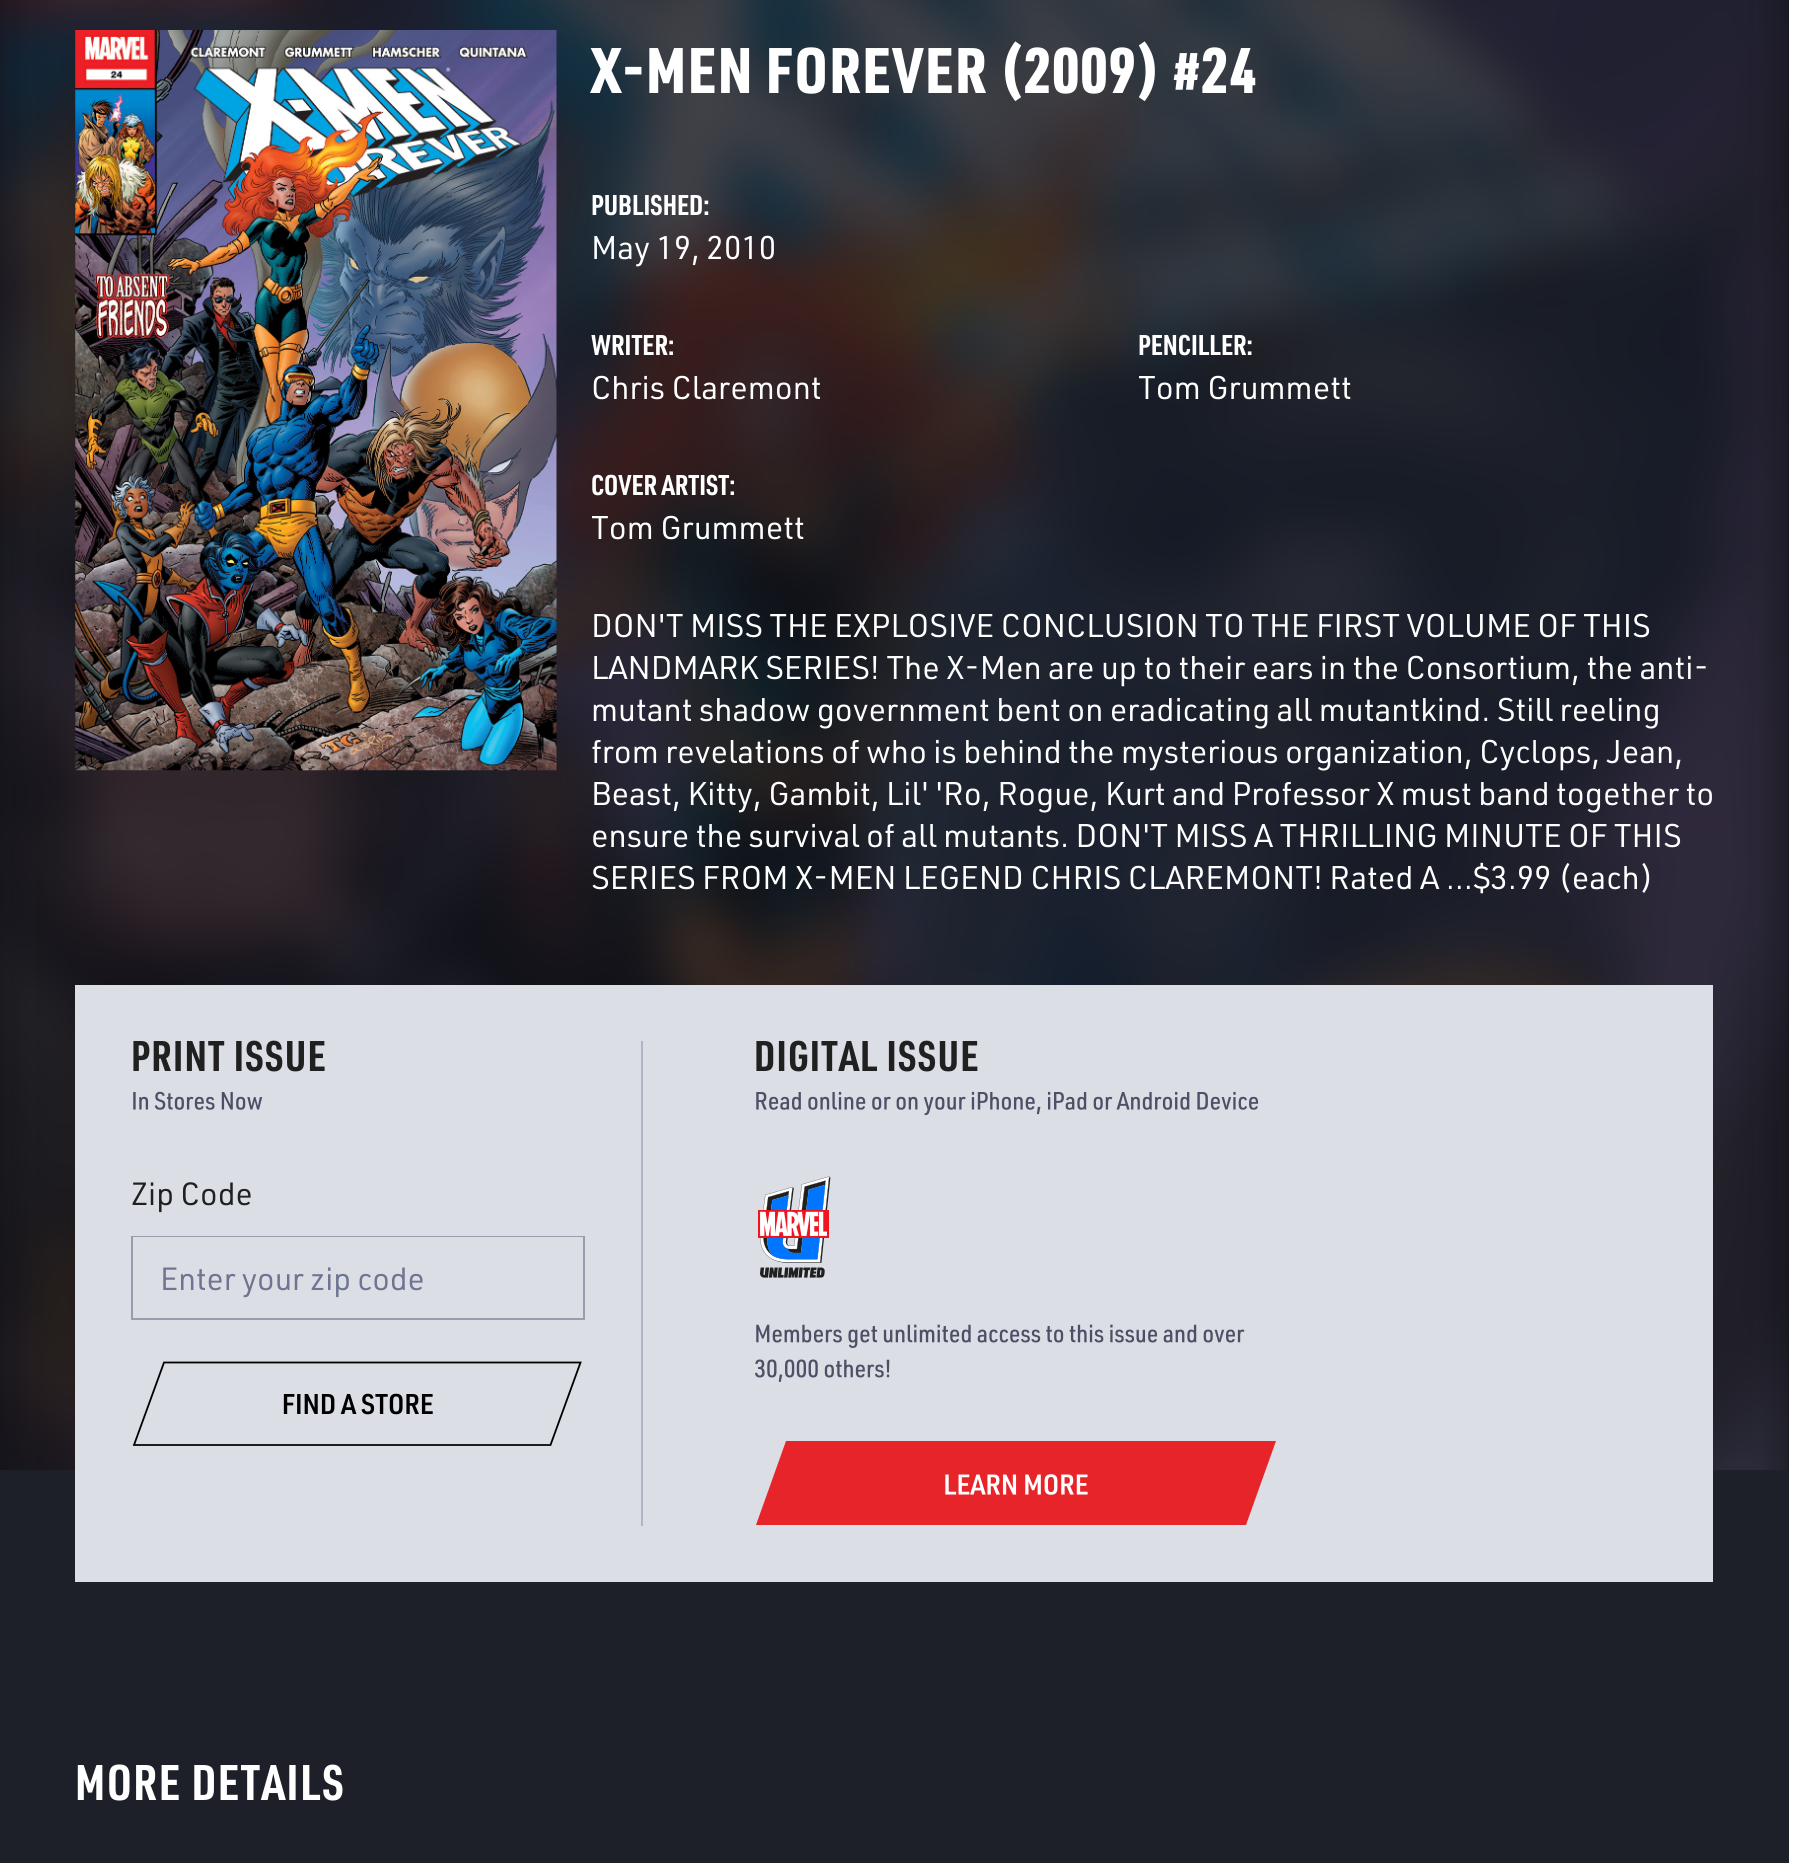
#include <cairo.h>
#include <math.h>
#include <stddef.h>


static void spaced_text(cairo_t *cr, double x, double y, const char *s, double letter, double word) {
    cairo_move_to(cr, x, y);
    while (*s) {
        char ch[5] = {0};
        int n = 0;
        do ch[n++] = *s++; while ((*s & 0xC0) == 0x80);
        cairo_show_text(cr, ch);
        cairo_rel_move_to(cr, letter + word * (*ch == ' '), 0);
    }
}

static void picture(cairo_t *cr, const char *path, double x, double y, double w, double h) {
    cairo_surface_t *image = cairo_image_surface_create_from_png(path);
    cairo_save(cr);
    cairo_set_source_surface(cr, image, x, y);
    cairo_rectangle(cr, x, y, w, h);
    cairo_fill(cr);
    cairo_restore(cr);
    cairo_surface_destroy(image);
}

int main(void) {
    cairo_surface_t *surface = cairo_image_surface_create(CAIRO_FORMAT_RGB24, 1805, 1863);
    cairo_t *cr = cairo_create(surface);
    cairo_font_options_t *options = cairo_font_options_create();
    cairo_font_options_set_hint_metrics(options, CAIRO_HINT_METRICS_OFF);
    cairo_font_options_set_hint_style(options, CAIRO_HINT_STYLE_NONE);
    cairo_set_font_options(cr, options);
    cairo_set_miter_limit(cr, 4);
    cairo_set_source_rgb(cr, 1, 1, 1);
    cairo_paint(cr);
    cairo_set_source_rgb(cr, 0.075, 0.078, 0.102);
    cairo_rectangle(cr, 0, 0, 1789, 1470);
    cairo_fill(cr);
    picture(cr, "img1.png", 0, 0, 1789, 1470);
    picture(cr, "img2.png", 75, 30, 482, 741);
    cairo_select_font_face(cr, "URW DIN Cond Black", CAIRO_FONT_SLANT_NORMAL, CAIRO_FONT_WEIGHT_NORMAL);
    cairo_set_font_size(cr, 63);
    cairo_set_source_rgb(cr, 1, 1, 1);
    spaced_text(cr, 591, 93, "X-MEN FOREVER (2009) #24", 1.75, 0);
    cairo_select_font_face(cr, "URW DIN Cond", CAIRO_FONT_SLANT_NORMAL, CAIRO_FONT_WEIGHT_BOLD);
    cairo_set_font_size(cr, 28);
    cairo_move_to(cr, 591, 215);
    cairo_show_text(cr, "PUBLISHED:");
    cairo_select_font_face(cr, "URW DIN", CAIRO_FONT_SLANT_NORMAL, CAIRO_FONT_WEIGHT_NORMAL);
    cairo_set_font_size(cr, 32.2);
    cairo_move_to(cr, 591, 259);
    cairo_show_text(cr, "May 19, 2010");
    cairo_select_font_face(cr, "URW DIN Cond", CAIRO_FONT_SLANT_NORMAL, CAIRO_FONT_WEIGHT_BOLD);
    cairo_set_font_size(cr, 28);
    cairo_move_to(cr, 591, 355);
    cairo_show_text(cr, "WRITER:");
    cairo_select_font_face(cr, "URW DIN", CAIRO_FONT_SLANT_NORMAL, CAIRO_FONT_WEIGHT_NORMAL);
    cairo_set_font_size(cr, 32.2);
    cairo_move_to(cr, 591, 399);
    cairo_show_text(cr, "Chris Claremont");
    cairo_select_font_face(cr, "URW DIN Cond", CAIRO_FONT_SLANT_NORMAL, CAIRO_FONT_WEIGHT_BOLD);
    cairo_set_font_size(cr, 28);
    cairo_move_to(cr, 1138, 355);
    cairo_show_text(cr, "PENCILLER:");
    cairo_select_font_face(cr, "URW DIN", CAIRO_FONT_SLANT_NORMAL, CAIRO_FONT_WEIGHT_NORMAL);
    cairo_set_font_size(cr, 32.2);
    cairo_move_to(cr, 1138, 399);
    cairo_show_text(cr, "Tom Grummett");
    cairo_select_font_face(cr, "URW DIN Cond", CAIRO_FONT_SLANT_NORMAL, CAIRO_FONT_WEIGHT_BOLD);
    cairo_set_font_size(cr, 28);
    cairo_move_to(cr, 591, 495);
    cairo_show_text(cr, "COVER ARTIST:");
    cairo_select_font_face(cr, "URW DIN", CAIRO_FONT_SLANT_NORMAL, CAIRO_FONT_WEIGHT_NORMAL);
    cairo_set_font_size(cr, 32.2);
    cairo_move_to(cr, 591, 539);
    cairo_show_text(cr, "Tom Grummett");
    cairo_move_to(cr, 591, 637);
    cairo_show_text(cr, "DON'T MISS THE EXPLOSIVE CONCLUSION TO THE FIRST VOLUME OF THIS");
    cairo_move_to(cr, 591, 679);
    cairo_show_text(cr, "LANDMARK SERIES! The X-Men are up to their ears in the Consortium, the anti-");
    cairo_move_to(cr, 591, 721);
    cairo_show_text(cr, "mutant shadow government bent on eradicating all mutantkind. Still reeling");
    cairo_move_to(cr, 591, 763);
    cairo_show_text(cr, "from revelations of who is behind the mysterious organization, Cyclops, Jean,");
    cairo_move_to(cr, 591, 805);
    cairo_show_text(cr, "Beast, Kitty, Gambit, Lil' 'Ro, Rogue, Kurt and Professor X must band together to");
    cairo_move_to(cr, 591, 847);
    cairo_show_text(cr, "ensure the survival of all mutants. DON'T MISS A THRILLING MINUTE OF THIS");
    cairo_move_to(cr, 591, 889);
    cairo_show_text(cr, "SERIES FROM X-MEN LEGEND CHRIS CLAREMONT! Rated A ...$3.99 (each)");
    cairo_set_source_rgb(cr, 0.118, 0.125, 0.161);
    cairo_rectangle(cr, 0, 1470, 1789, 393);
    cairo_fill(cr);
    cairo_set_source_rgb(cr, 0.863, 0.871, 0.898);
    cairo_rectangle(cr, 75, 985, 1638, 597);
    cairo_fill(cr);
    cairo_select_font_face(cr, "URW DIN Cond", CAIRO_FONT_SLANT_NORMAL, CAIRO_FONT_WEIGHT_BOLD);
    cairo_set_font_size(cr, 42);
    cairo_set_source_rgb(cr, 0.125, 0.125, 0.125);
    spaced_text(cr, 131, 1071, "PRINT ISSUE", 1.25, 0);
    picture(cr, "img3.png", 133, 1091, 130, 19);
    cairo_select_font_face(cr, "URW DIN", CAIRO_FONT_SLANT_NORMAL, CAIRO_FONT_WEIGHT_NORMAL);
    cairo_set_font_size(cr, 31.5);
    cairo_move_to(cr, 131, 1205);
    cairo_show_text(cr, "Zip Code");
    cairo_rectangle(cr, 132, 1237, 452, 82);
    cairo_set_source_rgb(cr, 0.596, 0.612, 0.686);
    cairo_stroke(cr);
    cairo_set_source_rgb(cr, 0.863, 0.871, 0.898);
    cairo_rectangle(cr, 133, 1237, 450, 1);
    cairo_fill(cr);
    cairo_set_source_rgb(cr, 0.431, 0.455, 0.569);
    cairo_move_to(cr, 160, 1290);
    cairo_show_text(cr, "Enter your zip code");
    cairo_new_path(cr);
    cairo_move_to(cr, 164, 1362.5);
    cairo_line_to(cr, 580.5, 1362.5);
    cairo_line_to(cr, 550.5, 1445);
    cairo_line_to(cr, 134, 1445);
    cairo_close_path(cr);
    cairo_set_source_rgb(cr, 0, 0, 0);
    cairo_set_line_width(cr, 1.8);
    cairo_stroke(cr);
    picture(cr, "img4.png", 283, 1393, 150, 22);
    cairo_set_source_rgb(cr, 0.69, 0.706, 0.769);
    cairo_rectangle(cr, 641, 1041, 2, 485);
    cairo_fill(cr);
    cairo_select_font_face(cr, "URW DIN Cond", CAIRO_FONT_SLANT_NORMAL, CAIRO_FONT_WEIGHT_BOLD);
    cairo_set_font_size(cr, 42);
    cairo_set_source_rgb(cr, 0.125, 0.125, 0.125);
    spaced_text(cr, 754, 1071, "DIGITAL ISSUE", 1.25, 0);
    picture(cr, "img5.png", 756, 1091, 503, 25);
    picture(cr, "img6.png", 758, 1176, 73, 102);
    picture(cr, "img7.png", 756, 1324, 489, 24);
    picture(cr, "img8.png", 755, 1359, 135, 23);
    cairo_set_source_rgb(cr, 0.902, 0.141, 0.161);
    cairo_new_path(cr);
    cairo_move_to(cr, 786, 1441);
    cairo_line_to(cr, 1276, 1441);
    cairo_line_to(cr, 1246, 1525);
    cairo_line_to(cr, 756, 1525);
    cairo_close_path(cr);
    cairo_fill(cr);
    picture(cr, "img9.png", 945, 1474, 143, 21);
    cairo_set_font_size(cr, 49);
    cairo_set_source_rgb(cr, 1, 1, 1);
    spaced_text(cr, 75, 1800, "MORE DETAILS", 1.75, 0);
    cairo_surface_write_to_png(surface, "page.png");
    cairo_font_options_destroy(options);
    cairo_destroy(cr);
    cairo_surface_destroy(surface);
    return 0;
}
